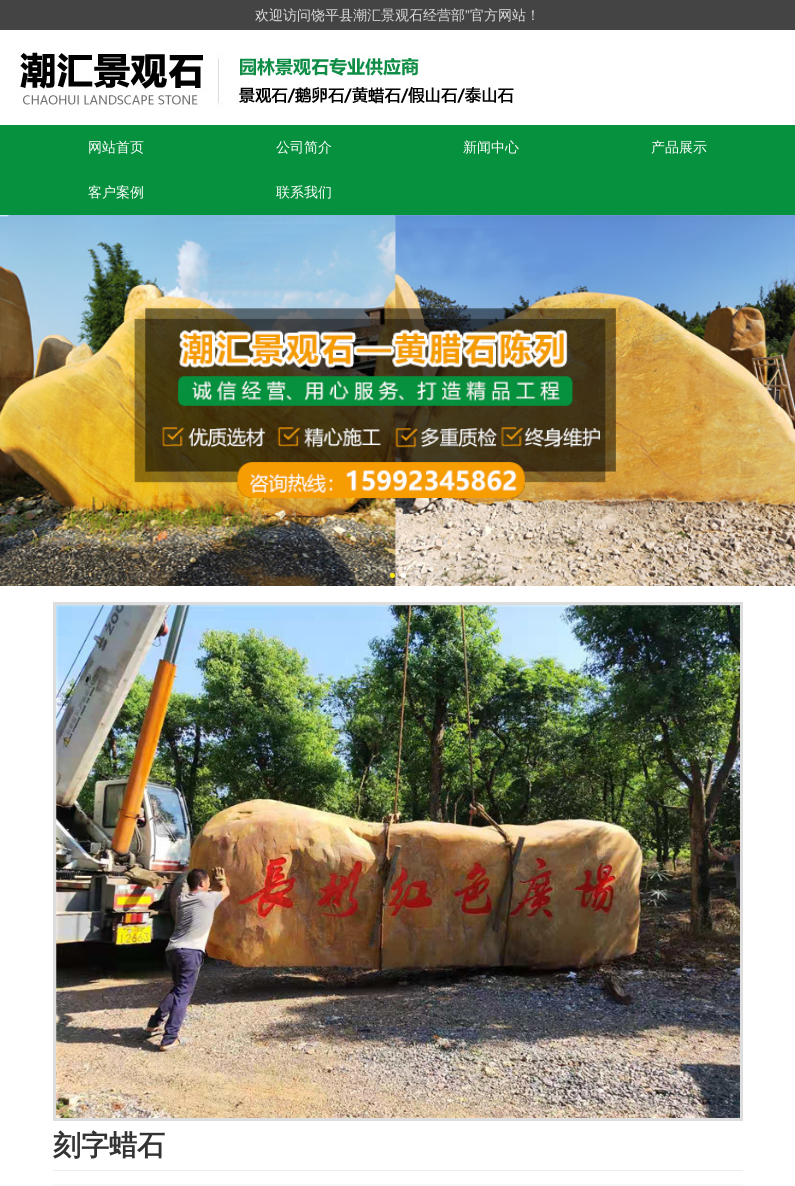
#include <cairo.h>
#include <math.h>
#include <stddef.h>


static void picture(cairo_t *cr, const char *path, double x, double y, double w, double h) {
    cairo_surface_t *image = cairo_image_surface_create_from_png(path);
    cairo_save(cr);
    cairo_set_source_surface(cr, image, x, y);
    cairo_rectangle(cr, x, y, w, h);
    cairo_fill(cr);
    cairo_restore(cr);
    cairo_surface_destroy(image);
}

int main(void) {
    cairo_surface_t *surface = cairo_image_surface_create(CAIRO_FORMAT_RGB24, 795, 1186);
    cairo_t *cr = cairo_create(surface);
    cairo_font_options_t *options = cairo_font_options_create();
    cairo_font_options_set_hint_metrics(options, CAIRO_HINT_METRICS_OFF);
    cairo_font_options_set_hint_style(options, CAIRO_HINT_STYLE_NONE);
    cairo_set_font_options(cr, options);
    cairo_set_miter_limit(cr, 4);
    cairo_set_source_rgb(cr, 1, 1, 1);
    cairo_paint(cr);
    cairo_set_source_rgb(cr, 0.267, 0.267, 0.267);
    cairo_rectangle(cr, 0, 0, 795, 30);
    cairo_fill(cr);
    cairo_select_font_face(cr, "WenQuanYi Zen Hei Medium", CAIRO_FONT_SLANT_NORMAL, CAIRO_FONT_WEIGHT_NORMAL);
    cairo_set_font_size(cr, 14);
    cairo_set_source_rgb(cr, 0.867, 0.867, 0.867);
    cairo_move_to(cr, 255, 20);
    cairo_show_text(cr, "欢迎访问饶平县潮汇景观石经营部");
    cairo_select_font_face(cr, "Liberation Sans", CAIRO_FONT_SLANT_NORMAL, CAIRO_FONT_WEIGHT_NORMAL);
    cairo_move_to(cr, 465, 20);
    cairo_show_text(cr, "”");
    cairo_select_font_face(cr, "WenQuanYi Zen Hei Medium", CAIRO_FONT_SLANT_NORMAL, CAIRO_FONT_WEIGHT_NORMAL);
    cairo_move_to(cr, 470, 20);
    cairo_show_text(cr, "官方网站！");
    picture(cr, "img1.png", 16, 52, 499, 57);
    cairo_set_source_rgb(cr, 0.024, 0.569, 0.243);
    cairo_rectangle(cr, 0, 125, 795, 90);
    cairo_fill(cr);
    cairo_set_source_rgb(cr, 1, 1, 1);
    cairo_move_to(cr, 88, 152);
    cairo_show_text(cr, "网站首页");
    cairo_move_to(cr, 276, 152);
    cairo_show_text(cr, "公司简介");
    cairo_move_to(cr, 463, 152);
    cairo_show_text(cr, "新闻中心");
    cairo_move_to(cr, 651, 152);
    cairo_show_text(cr, "产品展示");
    cairo_move_to(cr, 88, 197);
    cairo_show_text(cr, "客户案例");
    cairo_move_to(cr, 276, 197);
    cairo_show_text(cr, "联系我们");
    picture(cr, "img2.png", 0, 215, 795, 371);
    cairo_set_source_rgb(cr, 1, 0.918, 0);
    cairo_arc(cr, 392.5, 575.5, 2.5, 0, 2 * M_PI);
    cairo_fill(cr);
    cairo_set_source_rgb(cr, 1, 1, 1);
    cairo_arc(cr, 403.5, 575.5, 2.5, 0, 2 * M_PI);
    cairo_fill(cr);
    cairo_rectangle(cr, 54.5, 603.5, 687, 516);
    cairo_set_source_rgb(cr, 0.867, 0.867, 0.867);
    cairo_set_line_width(cr, 3);
    cairo_stroke(cr);
    picture(cr, "img3.png", 56, 605, 684, 513);
    cairo_set_source_rgb(cr, 0.922, 0.922, 0.922);
    cairo_rectangle(cr, 53, 1170, 690, 1);
    cairo_fill(cr);
    cairo_select_font_face(cr, "WenQuanYi Zen Hei", CAIRO_FONT_SLANT_NORMAL, CAIRO_FONT_WEIGHT_BOLD);
    cairo_set_font_size(cr, 28);
    cairo_set_source_rgb(cr, 0.2, 0.2, 0.2);
    cairo_move_to(cr, 53, 1155);
    cairo_show_text(cr, "刻字蜡石");
    cairo_set_source_rgb(cr, 0.969, 0.969, 0.969);
    cairo_rectangle(cr, 53, 1184, 690, 2);
    cairo_fill(cr);
    cairo_surface_write_to_png(surface, "page.png");
    cairo_font_options_destroy(options);
    cairo_destroy(cr);
    cairo_surface_destroy(surface);
    return 0;
}
